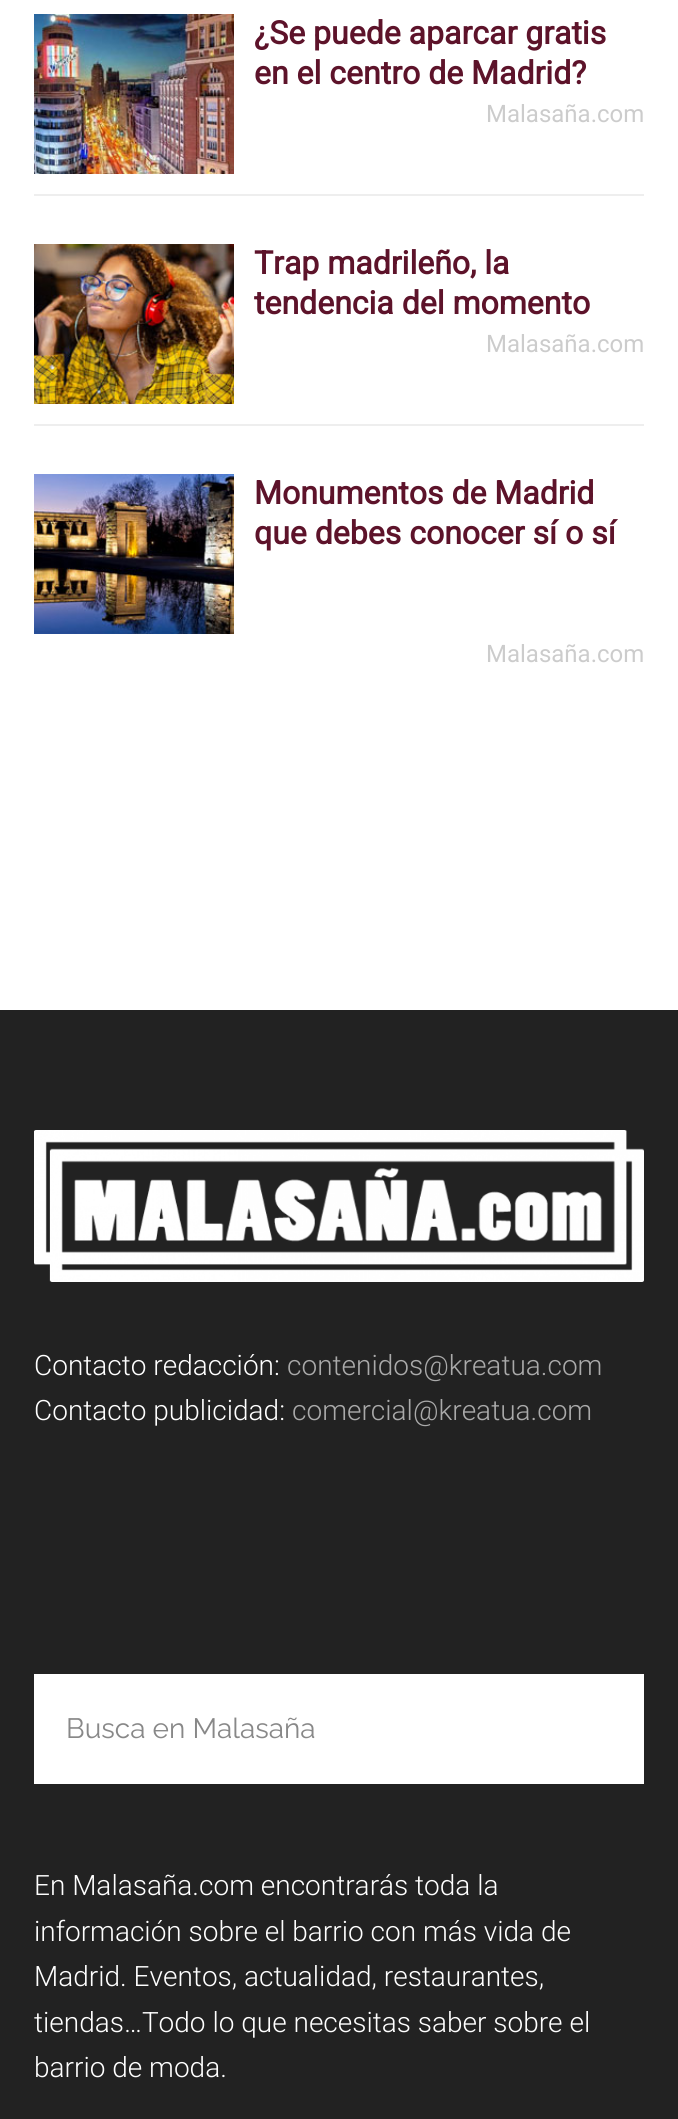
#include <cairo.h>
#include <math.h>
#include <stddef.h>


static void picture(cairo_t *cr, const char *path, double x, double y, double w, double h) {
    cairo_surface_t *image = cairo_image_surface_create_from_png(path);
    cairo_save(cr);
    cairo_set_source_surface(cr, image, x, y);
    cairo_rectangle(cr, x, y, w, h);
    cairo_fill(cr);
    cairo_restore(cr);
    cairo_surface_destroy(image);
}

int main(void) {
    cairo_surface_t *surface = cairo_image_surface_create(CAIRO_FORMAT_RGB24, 678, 2119);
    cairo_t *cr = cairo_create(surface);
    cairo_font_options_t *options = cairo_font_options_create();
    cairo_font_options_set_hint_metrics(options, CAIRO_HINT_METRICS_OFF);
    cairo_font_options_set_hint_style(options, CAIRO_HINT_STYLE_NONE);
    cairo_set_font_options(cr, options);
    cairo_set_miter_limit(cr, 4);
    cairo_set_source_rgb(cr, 1, 1, 1);
    cairo_paint(cr);
    cairo_set_source_rgb(cr, 0.933, 0.933, 0.933);
    cairo_rectangle(cr, 34, 194, 610, 2);
    cairo_fill(cr);
    picture(cr, "img1.png", 34, 14, 200, 160);
    cairo_select_font_face(cr, "Roboto", CAIRO_FONT_SLANT_NORMAL, CAIRO_FONT_WEIGHT_BOLD);
    cairo_set_font_size(cr, 32);
    cairo_set_source_rgb(cr, 0.365, 0.075, 0.165);
    cairo_move_to(cr, 254, 44);
    cairo_show_text(cr, "¿Se puede aparcar gratis");
    cairo_move_to(cr, 254, 84);
    cairo_show_text(cr, "en el centro de Madrid?");
    cairo_select_font_face(cr, "Roboto", CAIRO_FONT_SLANT_NORMAL, CAIRO_FONT_WEIGHT_NORMAL);
    cairo_set_font_size(cr, 24);
    cairo_set_source_rgb(cr, 0.8, 0.8, 0.8);
    cairo_move_to(cr, 486, 122);
    cairo_show_text(cr, "Malasaña.com");
    cairo_set_source_rgb(cr, 0.933, 0.933, 0.933);
    cairo_rectangle(cr, 34, 424, 610, 2);
    cairo_fill(cr);
    picture(cr, "img2.png", 34, 244, 200, 160);
    cairo_select_font_face(cr, "Roboto", CAIRO_FONT_SLANT_NORMAL, CAIRO_FONT_WEIGHT_BOLD);
    cairo_set_font_size(cr, 32);
    cairo_set_source_rgb(cr, 0.365, 0.075, 0.165);
    cairo_move_to(cr, 254, 274);
    cairo_show_text(cr, "Trap madrileño, la");
    cairo_move_to(cr, 254, 314);
    cairo_show_text(cr, "tendencia del momento");
    cairo_select_font_face(cr, "Roboto", CAIRO_FONT_SLANT_NORMAL, CAIRO_FONT_WEIGHT_NORMAL);
    cairo_set_font_size(cr, 24);
    cairo_set_source_rgb(cr, 0.8, 0.8, 0.8);
    cairo_move_to(cr, 486, 352);
    cairo_show_text(cr, "Malasaña.com");
    picture(cr, "img3.png", 34, 474, 200, 160);
    cairo_select_font_face(cr, "Roboto", CAIRO_FONT_SLANT_NORMAL, CAIRO_FONT_WEIGHT_BOLD);
    cairo_set_font_size(cr, 32);
    cairo_set_source_rgb(cr, 0.365, 0.075, 0.165);
    cairo_move_to(cr, 254, 504);
    cairo_show_text(cr, "Monumentos de Madrid");
    cairo_move_to(cr, 254, 544);
    cairo_show_text(cr, "que debes conocer sí o sí");
    cairo_select_font_face(cr, "Roboto", CAIRO_FONT_SLANT_NORMAL, CAIRO_FONT_WEIGHT_NORMAL);
    cairo_set_font_size(cr, 24);
    cairo_set_source_rgb(cr, 0.8, 0.8, 0.8);
    cairo_move_to(cr, 486, 662);
    cairo_show_text(cr, "Malasaña.com");
    cairo_set_source_rgb(cr, 0.133, 0.133, 0.133);
    cairo_rectangle(cr, 0, 1010, 678, 1109);
    cairo_fill(cr);
    picture(cr, "img4.png", 34, 1130, 610, 152);
    cairo_select_font_face(cr, "Roboto Light", CAIRO_FONT_SLANT_NORMAL, CAIRO_FONT_WEIGHT_NORMAL);
    cairo_set_font_size(cr, 28);
    cairo_set_source_rgb(cr, 1, 1, 1);
    cairo_move_to(cr, 34, 1375);
    cairo_show_text(cr, "Contacto redacción:");
    cairo_set_source_rgb(cr, 0.667, 0.667, 0.667);
    cairo_move_to(cr, 287, 1375);
    cairo_show_text(cr, "contenidos@kreatua.com");
    cairo_set_source_rgb(cr, 1, 1, 1);
    cairo_move_to(cr, 34, 1420);
    cairo_show_text(cr, "Contacto publicidad:");
    cairo_set_source_rgb(cr, 0.667, 0.667, 0.667);
    cairo_move_to(cr, 292, 1420);
    cairo_show_text(cr, "comercial@kreatua.com");
    cairo_set_source_rgb(cr, 1, 1, 1);
    cairo_rectangle(cr, 34, 1674, 610, 110);
    cairo_fill(cr);
    cairo_select_font_face(cr, "Raleway", CAIRO_FONT_SLANT_NORMAL, CAIRO_FONT_WEIGHT_NORMAL);
    cairo_set_source_rgb(cr, 0.533, 0.533, 0.533);
    cairo_move_to(cr, 66, 1738);
    cairo_show_text(cr, "Busca en Malasaña");
    cairo_select_font_face(cr, "Roboto Light", CAIRO_FONT_SLANT_NORMAL, CAIRO_FONT_WEIGHT_NORMAL);
    cairo_set_source_rgb(cr, 1, 1, 1);
    cairo_move_to(cr, 34, 1895);
    cairo_show_text(cr, "En Malasaña.com encontrarás toda la");
    cairo_move_to(cr, 34, 1941);
    cairo_show_text(cr, "información sobre el barrio con más vida de");
    cairo_move_to(cr, 34, 1986);
    cairo_show_text(cr, "Madrid. Eventos, actualidad, restaurantes,");
    cairo_move_to(cr, 34, 2032);
    cairo_show_text(cr, "tiendas…Todo lo que necesitas saber sobre el");
    cairo_move_to(cr, 34, 2077);
    cairo_show_text(cr, "barrio de moda.");
    cairo_surface_write_to_png(surface, "page.png");
    cairo_font_options_destroy(options);
    cairo_destroy(cr);
    cairo_surface_destroy(surface);
    return 0;
}
